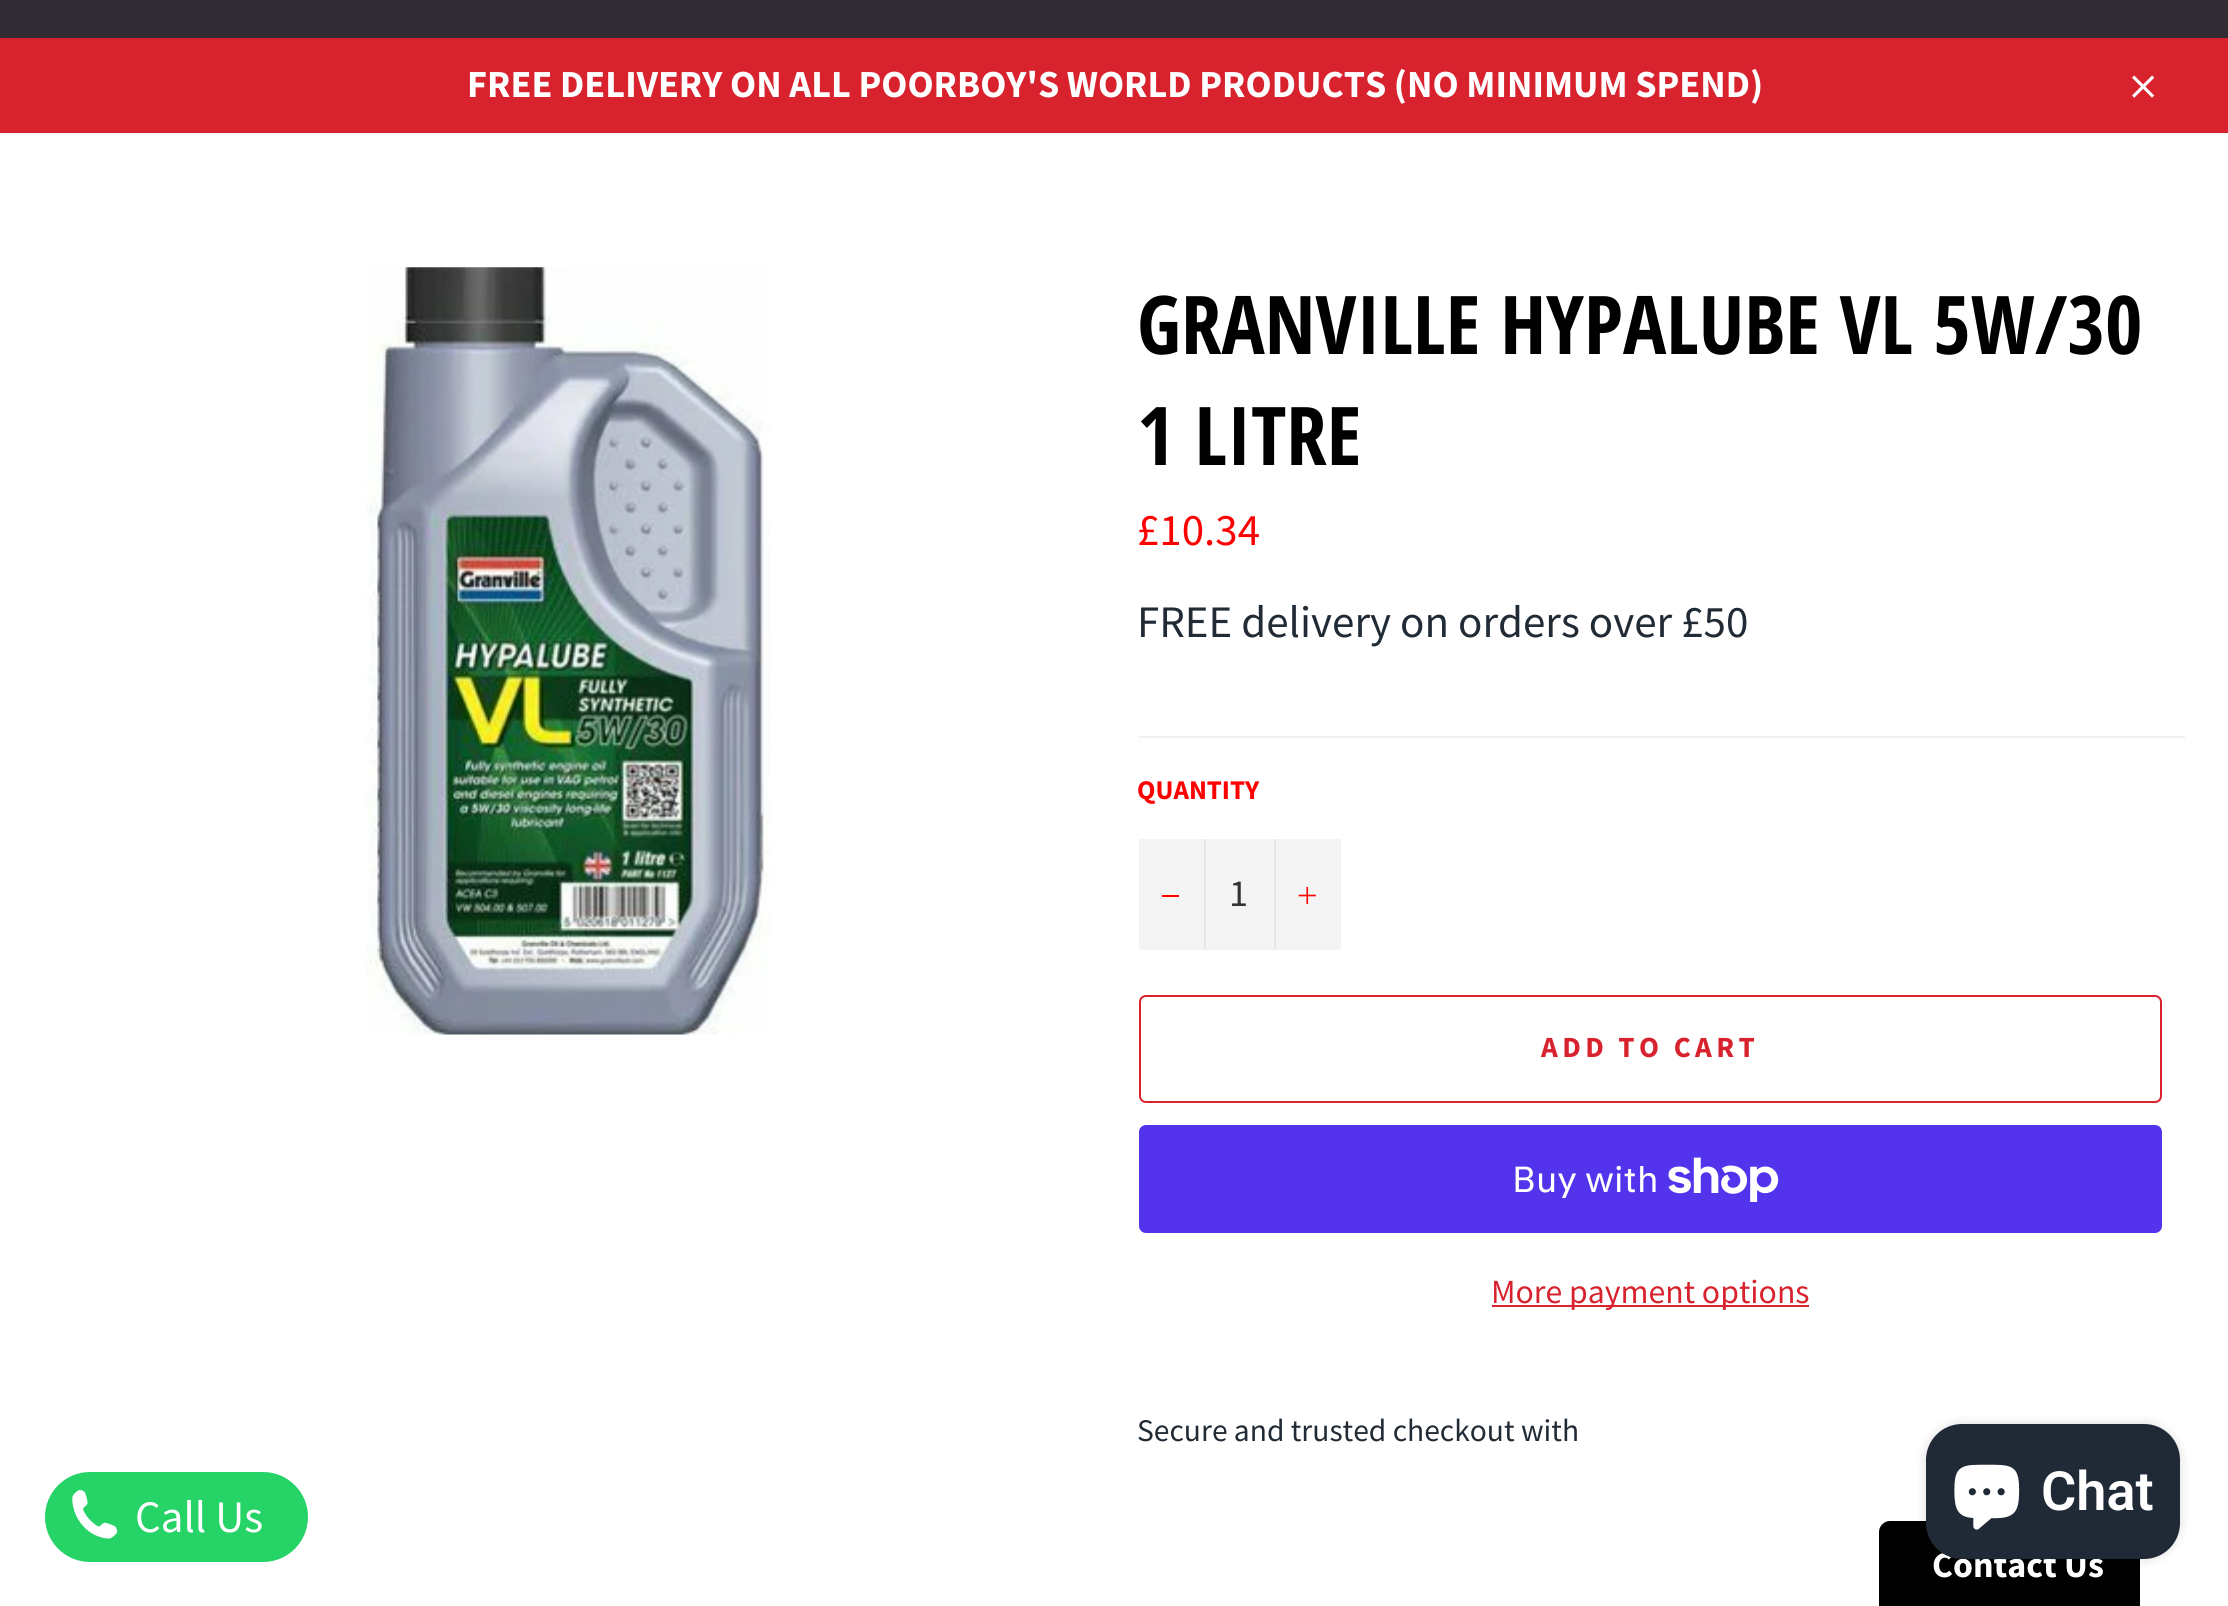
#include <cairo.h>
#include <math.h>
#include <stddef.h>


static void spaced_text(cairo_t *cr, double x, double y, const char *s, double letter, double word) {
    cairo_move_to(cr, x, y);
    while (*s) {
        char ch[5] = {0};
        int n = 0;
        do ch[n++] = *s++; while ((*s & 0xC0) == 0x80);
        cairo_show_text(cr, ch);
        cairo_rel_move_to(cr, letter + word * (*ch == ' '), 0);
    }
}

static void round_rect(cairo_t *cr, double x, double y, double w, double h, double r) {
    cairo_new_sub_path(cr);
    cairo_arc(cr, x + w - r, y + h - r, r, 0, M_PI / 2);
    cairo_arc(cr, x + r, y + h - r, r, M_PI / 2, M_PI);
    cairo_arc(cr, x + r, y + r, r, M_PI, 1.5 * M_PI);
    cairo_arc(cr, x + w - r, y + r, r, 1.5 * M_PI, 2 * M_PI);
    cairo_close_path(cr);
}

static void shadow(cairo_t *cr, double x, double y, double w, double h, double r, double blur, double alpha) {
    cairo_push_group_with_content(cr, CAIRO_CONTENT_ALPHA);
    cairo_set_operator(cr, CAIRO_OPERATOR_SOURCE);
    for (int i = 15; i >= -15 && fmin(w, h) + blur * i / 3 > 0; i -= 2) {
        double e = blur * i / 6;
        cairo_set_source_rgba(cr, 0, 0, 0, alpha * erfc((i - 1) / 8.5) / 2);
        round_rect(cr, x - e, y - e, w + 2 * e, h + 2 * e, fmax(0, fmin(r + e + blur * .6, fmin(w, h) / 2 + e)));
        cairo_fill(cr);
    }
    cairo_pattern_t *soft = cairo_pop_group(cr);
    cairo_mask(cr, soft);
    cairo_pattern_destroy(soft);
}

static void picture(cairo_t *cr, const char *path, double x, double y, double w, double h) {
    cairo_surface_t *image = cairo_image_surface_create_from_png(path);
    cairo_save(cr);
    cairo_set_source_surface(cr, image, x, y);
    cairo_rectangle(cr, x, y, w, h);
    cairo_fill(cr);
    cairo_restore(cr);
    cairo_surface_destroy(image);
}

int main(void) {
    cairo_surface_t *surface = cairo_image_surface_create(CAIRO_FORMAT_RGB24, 2228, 1606);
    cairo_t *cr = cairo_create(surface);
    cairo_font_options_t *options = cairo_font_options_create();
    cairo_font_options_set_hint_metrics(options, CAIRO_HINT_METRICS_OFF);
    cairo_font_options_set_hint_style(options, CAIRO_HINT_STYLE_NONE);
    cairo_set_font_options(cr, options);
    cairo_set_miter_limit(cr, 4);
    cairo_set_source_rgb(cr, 0.847, 0.137, 0.184);
    cairo_paint(cr);
    cairo_set_source_rgb(cr, 0.184, 0.176, 0.2);
    cairo_rectangle(cr, 0, 0, 2228, 38);
    cairo_fill(cr);
    cairo_select_font_face(cr, "Source Sans Pro", CAIRO_FONT_SLANT_NORMAL, CAIRO_FONT_WEIGHT_BOLD);
    cairo_set_font_size(cr, 38.25);
    cairo_set_source_rgb(cr, 1, 1, 1);
    cairo_move_to(cr, 467, 97);
    cairo_show_text(cr, "FREE DELIVERY ON ALL POORBOY'S WORLD PRODUCTS (NO MINIMUM SPEND)");
    picture(cr, "img1.png", 2132, 75, 23, 23);
    cairo_rectangle(cr, 0, 133, 2228, 1473);
    cairo_fill(cr);
    picture(cr, "img2.png", 366, 267, 404, 768);
    cairo_select_font_face(cr, "Open Sans Condensed", CAIRO_FONT_SLANT_NORMAL, CAIRO_FONT_WEIGHT_BOLD);
    cairo_set_font_size(cr, 81);
    cairo_set_source_rgb(cr, 0, 0, 0);
    cairo_move_to(cr, 1137, 354);
    cairo_show_text(cr, "GRANVILLE HYPALUBE VL 5W/30");
    cairo_move_to(cr, 1137, 465);
    cairo_show_text(cr, "1 LITRE");
    cairo_select_font_face(cr, "Source Sans Pro", CAIRO_FONT_SLANT_NORMAL, CAIRO_FONT_WEIGHT_NORMAL);
    cairo_set_font_size(cr, 45);
    cairo_set_source_rgb(cr, 1, 0, 0);
    cairo_move_to(cr, 1137, 545);
    cairo_show_text(cr, "£10.34");
    cairo_set_source_rgb(cr, 0.129, 0.169, 0.208);
    cairo_move_to(cr, 1137, 637);
    cairo_show_text(cr, "FREE delivery on orders over £50");
    cairo_set_source_rgb(cr, 0.941, 0.941, 0.941);
    cairo_rectangle(cr, 1139, 736, 1046, 2);
    cairo_fill(cr);
    cairo_select_font_face(cr, "Source Sans Pro", CAIRO_FONT_SLANT_NORMAL, CAIRO_FONT_WEIGHT_BOLD);
    cairo_set_font_size(cr, 27);
    cairo_set_source_rgb(cr, 1, 0, 0);
    cairo_move_to(cr, 1137, 799);
    cairo_show_text(cr, "QUANTITY");
    cairo_set_source_rgb(cr, 0.957, 0.957, 0.957);
    cairo_rectangle(cr, 1139, 839, 202, 111);
    cairo_fill(cr);
    cairo_set_source_rgb(cr, 0.906, 0.906, 0.906);
    cairo_rectangle(cr, 1204, 839, 2, 111);
    cairo_fill(cr);
    cairo_set_source_rgb(cr, 1, 0, 0);
    cairo_rectangle(cr, 1162, 895, 17, 2);
    cairo_fill(cr);
    cairo_select_font_face(cr, "Source Sans Pro", CAIRO_FONT_SLANT_NORMAL, CAIRO_FONT_WEIGHT_NORMAL);
    cairo_set_font_size(cr, 38.25);
    cairo_set_source_rgb(cr, 0.2, 0.2, 0.2);
    cairo_move_to(cr, 1229, 906);
    cairo_show_text(cr, "1");
    cairo_set_source_rgb(cr, 0.906, 0.906, 0.906);
    cairo_rectangle(cr, 1274, 839, 2, 111);
    cairo_fill(cr);
    picture(cr, "img3.png", 1298, 887, 18, 18);
    round_rect(cr, 1140, 996, 1021, 106, 6);
    cairo_set_source_rgb(cr, 0.847, 0.137, 0.184);
    cairo_stroke(cr);
    cairo_select_font_face(cr, "Source Sans Pro", CAIRO_FONT_SLANT_NORMAL, CAIRO_FONT_WEIGHT_BOLD);
    cairo_set_font_size(cr, 29.25);
    spaced_text(cr, 1541, 1057, "ADD TO CART", 4.4, 0);
    cairo_set_source_rgb(cr, 0.329, 0.2, 0.922);
    round_rect(cr, 1139, 1125, 1023, 108, 7);
    cairo_fill(cr);
    cairo_select_font_face(cr, "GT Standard", CAIRO_FONT_SLANT_NORMAL, CAIRO_FONT_WEIGHT_NORMAL);
    cairo_set_font_size(cr, 36);
    cairo_set_source_rgb(cr, 1, 1, 1);
    cairo_move_to(cr, 1512, 1192);
    cairo_show_text(cr, "Buy with");
    picture(cr, "img4.png", 1668, 1157, 111, 45);
    cairo_set_source_rgb(cr, 0.847, 0.137, 0.184);
    cairo_rectangle(cr, 1492, 1305, 317, 2);
    cairo_fill(cr);
    cairo_select_font_face(cr, "Source Sans Pro", CAIRO_FONT_SLANT_NORMAL, CAIRO_FONT_WEIGHT_NORMAL);
    cairo_set_font_size(cr, 33.75);
    cairo_move_to(cr, 1491, 1303);
    cairo_show_text(cr, "More payment options");
    cairo_set_font_size(cr, 31.5);
    cairo_set_source_rgb(cr, 0.129, 0.169, 0.208);
    cairo_move_to(cr, 1137, 1441);
    cairo_show_text(cr, "Secure and trusted checkout with");
    cairo_set_source_rgb(cr, 0, 0, 0);
    cairo_new_path(cr);
    cairo_move_to(cr, 1890, 1521);
    cairo_line_to(cr, 2129, 1521);
    cairo_curve_to(cr, 2135, 1521, 2140, 1526, 2140, 1532);
    cairo_line_to(cr, 2140, 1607);
    cairo_line_to(cr, 1879, 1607);
    cairo_line_to(cr, 1879, 1532);
    cairo_curve_to(cr, 1879, 1526, 1884, 1521, 1890, 1521);
    cairo_close_path(cr);
    cairo_fill(cr);
    cairo_set_source_rgb(cr, 0, 0, 0);
    shadow(cr, 1926, 1424, 254, 135, 36, 5.5, 0.15);
    cairo_select_font_face(cr, "Source Sans Pro", CAIRO_FONT_SLANT_NORMAL, CAIRO_FONT_WEIGHT_BOLD);
    cairo_set_font_size(cr, 36);
    cairo_set_source_rgb(cr, 1, 1, 1);
    cairo_move_to(cr, 1932, 1577);
    cairo_show_text(cr, "Contact Us");
    cairo_set_source_rgb(cr, 0.125, 0.165, 0.212);
    round_rect(cr, 1926, 1424, 254, 135, 36);
    cairo_fill(cr);
    picture(cr, "img5.png", 1954, 1464, 66, 66);
    cairo_select_font_face(cr, "Roboto SemiBold", CAIRO_FONT_SLANT_NORMAL, CAIRO_FONT_WEIGHT_NORMAL);
    cairo_set_font_size(cr, 54);
    cairo_set_source_rgb(cr, 1, 1, 1);
    cairo_move_to(cr, 2041, 1510);
    cairo_show_text(cr, "Chat");
    cairo_set_source_rgb(cr, 0.145, 0.827, 0.4);
    round_rect(cr, 45, 1472, 263, 90, 45);
    cairo_fill(cr);
    picture(cr, "img6.png", 72, 1490, 46, 49);
    cairo_select_font_face(cr, "Source Sans Pro", CAIRO_FONT_SLANT_NORMAL, CAIRO_FONT_WEIGHT_NORMAL);
    cairo_set_font_size(cr, 45);
    cairo_set_source_rgb(cr, 1, 1, 1);
    cairo_move_to(cr, 135, 1532);
    cairo_show_text(cr, "Call Us");
    cairo_surface_write_to_png(surface, "page.png");
    cairo_font_options_destroy(options);
    cairo_destroy(cr);
    cairo_surface_destroy(surface);
    return 0;
}
